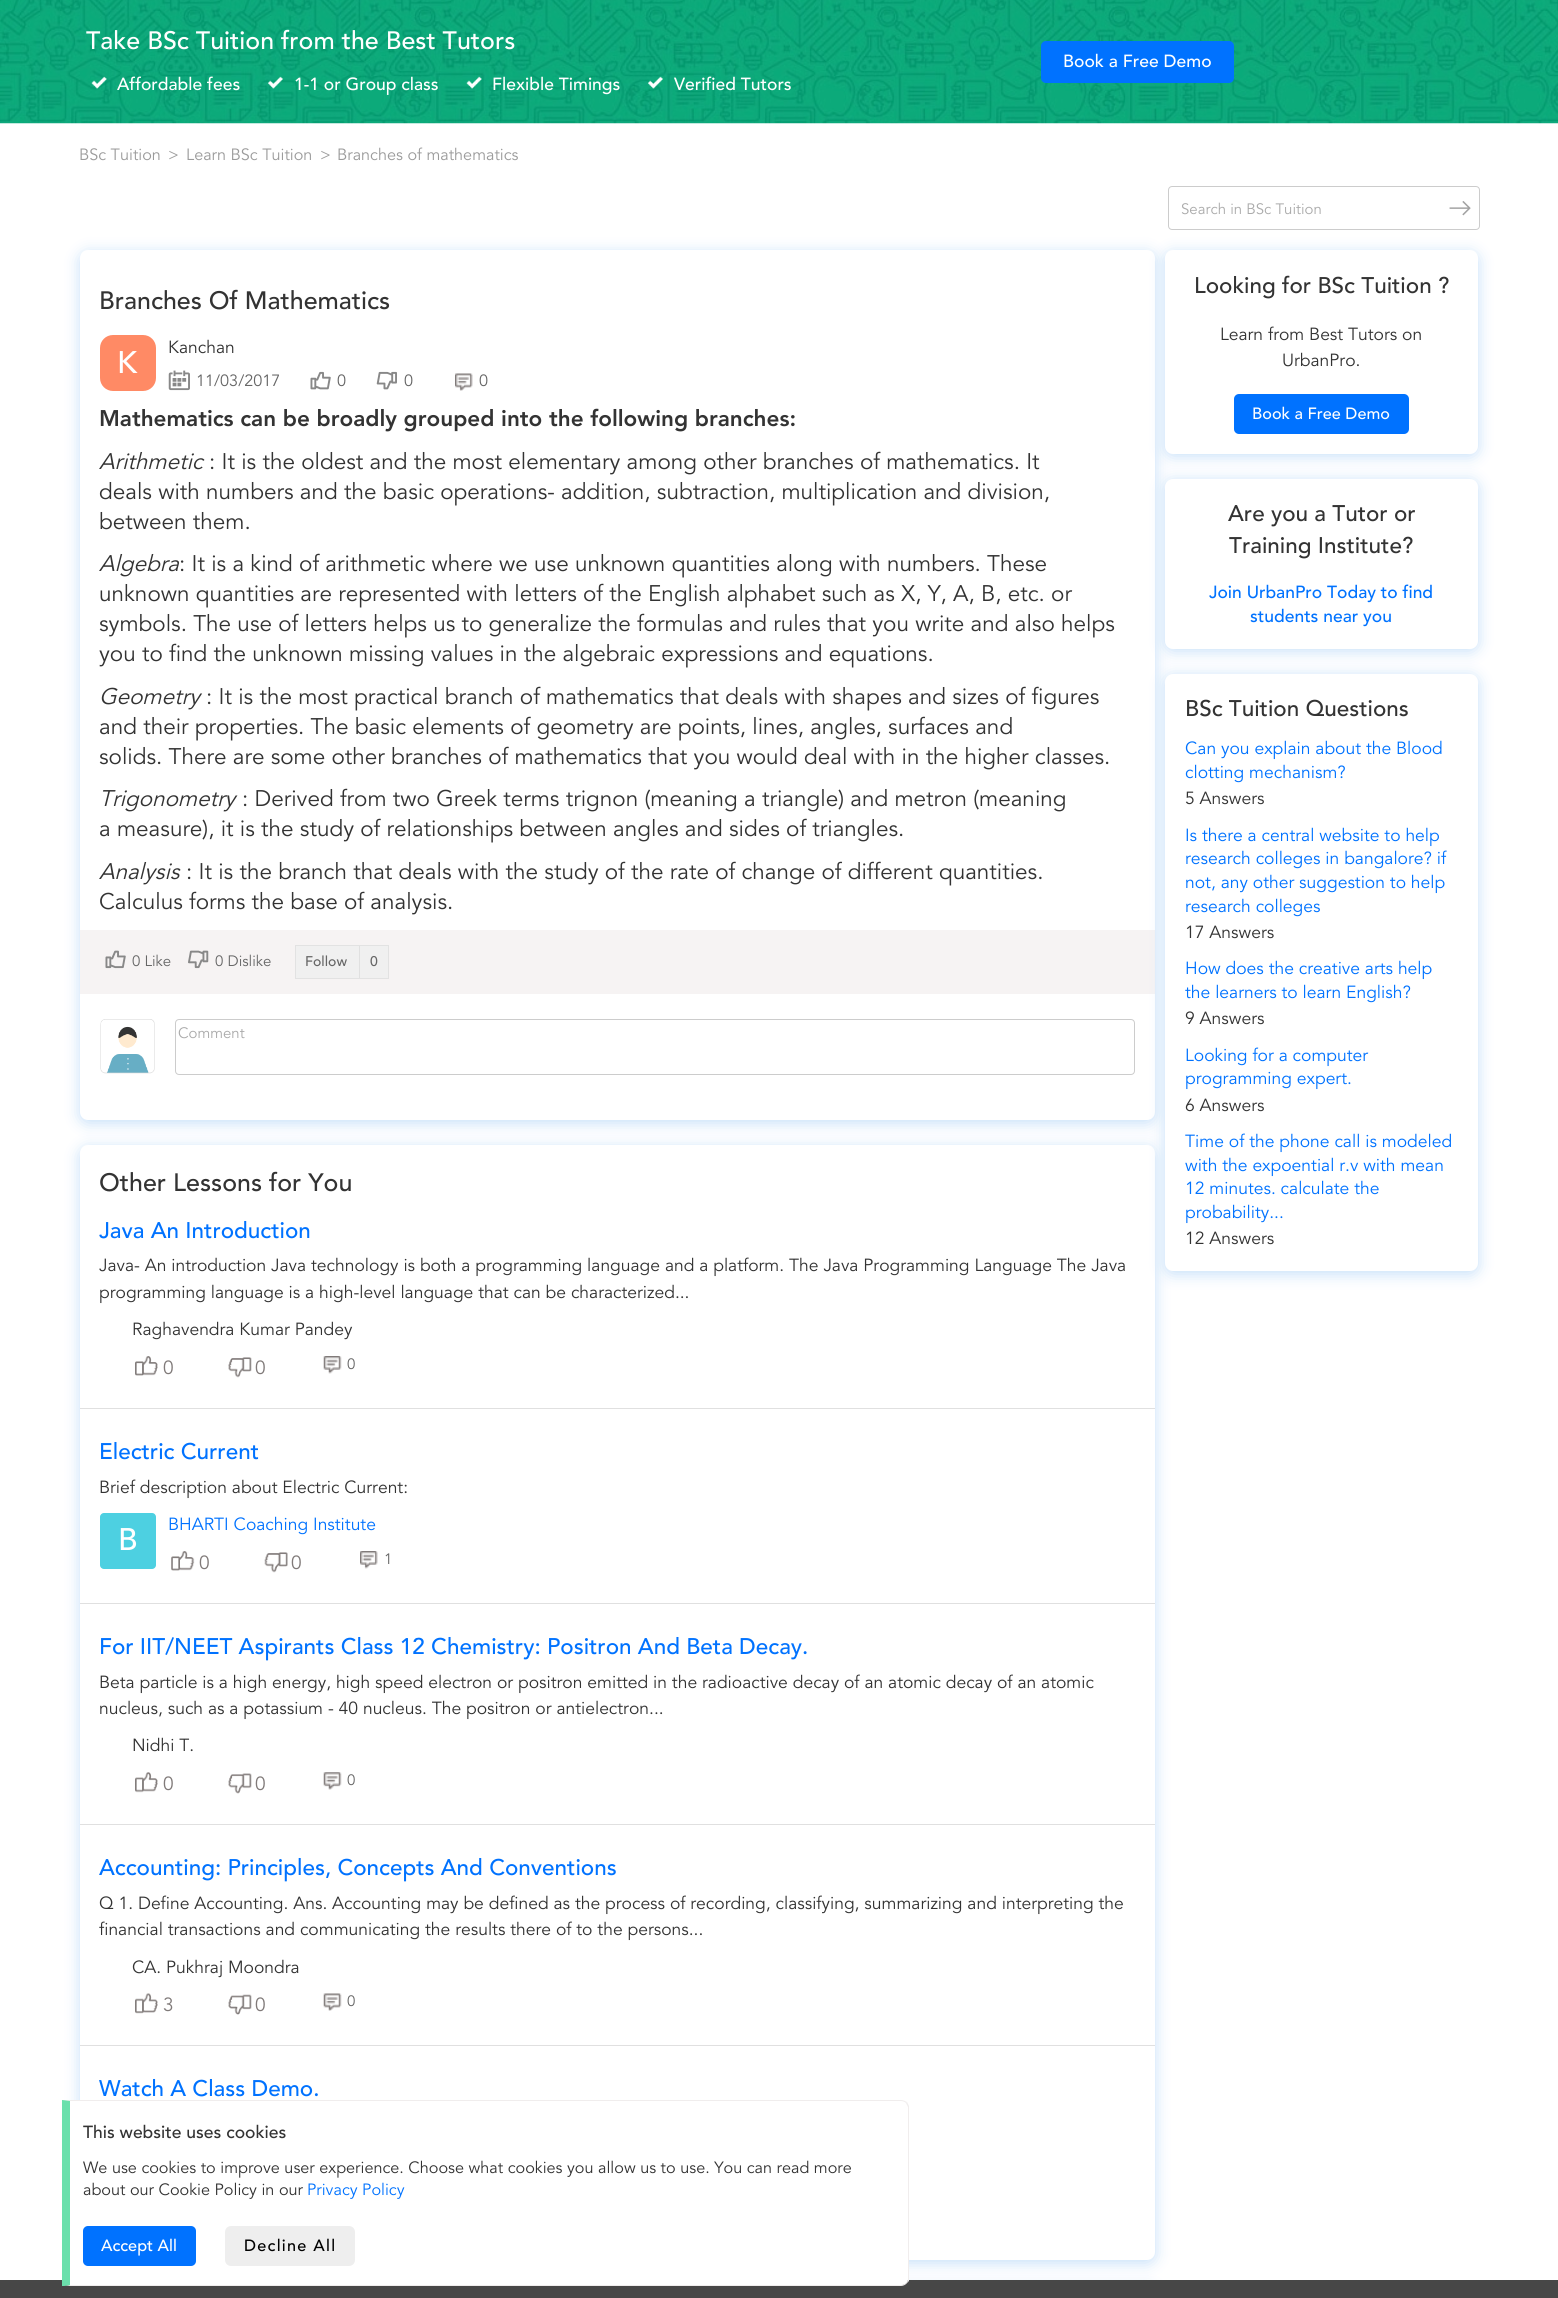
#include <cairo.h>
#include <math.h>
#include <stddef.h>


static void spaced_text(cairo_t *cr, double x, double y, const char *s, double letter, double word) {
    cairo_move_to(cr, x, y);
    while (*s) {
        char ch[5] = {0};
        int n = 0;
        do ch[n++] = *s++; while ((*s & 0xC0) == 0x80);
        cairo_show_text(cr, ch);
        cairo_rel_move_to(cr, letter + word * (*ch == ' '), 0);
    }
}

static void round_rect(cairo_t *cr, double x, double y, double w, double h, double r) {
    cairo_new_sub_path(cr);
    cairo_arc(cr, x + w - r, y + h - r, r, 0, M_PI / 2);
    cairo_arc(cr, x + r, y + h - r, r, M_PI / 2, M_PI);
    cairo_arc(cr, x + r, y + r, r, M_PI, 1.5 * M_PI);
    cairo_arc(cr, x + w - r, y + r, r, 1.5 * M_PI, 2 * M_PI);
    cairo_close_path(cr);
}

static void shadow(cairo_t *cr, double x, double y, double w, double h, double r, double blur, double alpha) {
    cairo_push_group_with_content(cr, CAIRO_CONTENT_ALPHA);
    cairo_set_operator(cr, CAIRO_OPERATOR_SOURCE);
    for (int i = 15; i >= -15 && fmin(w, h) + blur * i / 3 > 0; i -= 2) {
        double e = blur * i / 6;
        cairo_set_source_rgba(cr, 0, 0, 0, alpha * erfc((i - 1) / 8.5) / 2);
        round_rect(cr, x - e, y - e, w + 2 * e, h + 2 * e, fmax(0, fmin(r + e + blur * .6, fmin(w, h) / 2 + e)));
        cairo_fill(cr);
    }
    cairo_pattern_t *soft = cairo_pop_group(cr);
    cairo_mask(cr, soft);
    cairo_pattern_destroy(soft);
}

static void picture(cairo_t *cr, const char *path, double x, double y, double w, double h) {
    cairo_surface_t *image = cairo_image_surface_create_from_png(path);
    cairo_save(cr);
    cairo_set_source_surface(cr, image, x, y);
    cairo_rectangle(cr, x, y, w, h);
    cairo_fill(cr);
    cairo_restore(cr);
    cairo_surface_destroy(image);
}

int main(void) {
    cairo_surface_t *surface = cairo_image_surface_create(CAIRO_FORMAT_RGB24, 1558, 2298);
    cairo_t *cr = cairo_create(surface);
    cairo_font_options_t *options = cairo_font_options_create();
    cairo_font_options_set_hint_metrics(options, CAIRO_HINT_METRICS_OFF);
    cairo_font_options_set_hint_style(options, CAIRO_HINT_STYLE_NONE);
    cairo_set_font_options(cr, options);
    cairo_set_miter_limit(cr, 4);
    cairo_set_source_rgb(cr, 1, 1, 1);
    cairo_paint(cr);
    picture(cr, "img1.png", 0, 0, 1558, 124);
    cairo_select_font_face(cr, "Avenir Medium", CAIRO_FONT_SLANT_NORMAL, CAIRO_FONT_WEIGHT_NORMAL);
    cairo_set_font_size(cr, 25);
    cairo_set_source_rgb(cr, 1, 1, 1);
    cairo_move_to(cr, 86, 49);
    cairo_show_text(cr, "Take BSc Tuition from the Best Tutors");
    picture(cr, "img2.png", 91, 76, 16, 13);
    cairo_set_font_size(cr, 17.5);
    cairo_move_to(cr, 117, 90);
    cairo_show_text(cr, "Affordable fees");
    picture(cr, "img3.png", 268, 76, 15, 13);
    cairo_move_to(cr, 294, 90);
    cairo_show_text(cr, "1-1 or Group class");
    picture(cr, "img4.png", 466, 76, 16, 13);
    cairo_move_to(cr, 492, 90);
    cairo_show_text(cr, "Flexible Timings");
    picture(cr, "img5.png", 648, 76, 15, 13);
    cairo_move_to(cr, 674, 90);
    cairo_show_text(cr, "Verified Tutors");
    cairo_set_source_rgb(cr, 0, 0.447, 1);
    round_rect(cr, 1041, 41, 193, 42, 5);
    cairo_fill(cr);
    cairo_set_source_rgb(cr, 1, 1, 1);
    cairo_move_to(cr, 1063, 67);
    cairo_show_text(cr, "Book a Free Demo");
    cairo_select_font_face(cr, "Avenir", CAIRO_FONT_SLANT_NORMAL, CAIRO_FONT_WEIGHT_NORMAL);
    cairo_set_font_size(cr, 16.25);
    cairo_set_source_rgb(cr, 0.608, 0.608, 0.608);
    cairo_move_to(cr, 79, 160);
    cairo_show_text(cr, "BSc Tuition");
    cairo_move_to(cr, 168, 160);
    cairo_show_text(cr, ">");
    cairo_move_to(cr, 186, 160);
    cairo_show_text(cr, "Learn BSc Tuition");
    cairo_move_to(cr, 320, 160);
    cairo_show_text(cr, ">");
    cairo_move_to(cr, 337, 160);
    cairo_show_text(cr, "Branches of mathematics");
    round_rect(cr, 1168.5, 186.5, 311, 43, 3.5);
    cairo_set_source_rgb(cr, 0.8, 0.8, 0.8);
    cairo_set_line_width(cr, 1);
    cairo_stroke(cr);
    cairo_set_font_size(cr, 15);
    cairo_set_source_rgb(cr, 0.667, 0.667, 0.667);
    cairo_move_to(cr, 1181, 214);
    cairo_show_text(cr, "Search in BSc Tuition");
    picture(cr, "img6.png", 1449, 201, 22, 15);
    cairo_set_source_rgb(cr, 0.773, 0.875, 0.973);
    shadow(cr, 80, 253, 1075, 870, 8, 7.5, 1);
    cairo_set_source_rgb(cr, 1, 1, 1);
    round_rect(cr, 80, 250, 1075, 870, 8);
    cairo_fill(cr);
    cairo_select_font_face(cr, "Avenir Medium", CAIRO_FONT_SLANT_NORMAL, CAIRO_FONT_WEIGHT_NORMAL);
    cairo_set_font_size(cr, 25);
    cairo_set_source_rgb(cr, 0.2, 0.2, 0.2);
    cairo_move_to(cr, 99, 309);
    cairo_show_text(cr, "Branches Of Mathematics");
    cairo_select_font_face(cr, "Avenir", CAIRO_FONT_SLANT_NORMAL, CAIRO_FONT_WEIGHT_NORMAL);
    cairo_set_font_size(cr, 17.5);
    cairo_move_to(cr, 168, 353);
    cairo_show_text(cr, "Kanchan");
    cairo_set_source_rgb(cr, 1, 0.541, 0.396);
    round_rect(cr, 100, 335, 56, 56, 13);
    cairo_fill(cr);
    cairo_select_font_face(cr, "Avenir Medium", CAIRO_FONT_SLANT_NORMAL, CAIRO_FONT_WEIGHT_NORMAL);
    cairo_set_font_size(cr, 31);
    cairo_set_source_rgb(cr, 1, 1, 1);
    cairo_move_to(cr, 117, 373);
    cairo_show_text(cr, "K");
    picture(cr, "img7.png", 168, 370, 22, 21);
    cairo_select_font_face(cr, "Avenir", CAIRO_FONT_SLANT_NORMAL, CAIRO_FONT_WEIGHT_NORMAL);
    cairo_set_font_size(cr, 16.25);
    cairo_set_source_rgb(cr, 0.4, 0.4, 0.4);
    cairo_move_to(cr, 196, 386);
    cairo_show_text(cr, "11/03/2017");
    picture(cr, "img8.png", 310, 371, 21, 19);
    cairo_move_to(cr, 337, 386);
    cairo_show_text(cr, "0");
    picture(cr, "img9.png", 376, 371, 21, 19);
    cairo_move_to(cr, 404, 386);
    cairo_show_text(cr, "0");
    picture(cr, "img10.png", 455, 373, 18, 18);
    cairo_move_to(cr, 479, 386);
    cairo_show_text(cr, "0");
    cairo_select_font_face(cr, "Avenir Black", CAIRO_FONT_SLANT_NORMAL, CAIRO_FONT_WEIGHT_NORMAL);
    cairo_set_font_size(cr, 22.5);
    cairo_set_source_rgb(cr, 0.2, 0.2, 0.2);
    cairo_move_to(cr, 99, 426);
    cairo_show_text(cr, "Mathematics can be broadly grouped into the following branches:");
    cairo_select_font_face(cr, "Avenir", CAIRO_FONT_SLANT_ITALIC, CAIRO_FONT_WEIGHT_NORMAL);
    cairo_move_to(cr, 99, 469);
    cairo_show_text(cr, "Arithmetic");
    cairo_select_font_face(cr, "Avenir", CAIRO_FONT_SLANT_NORMAL, CAIRO_FONT_WEIGHT_NORMAL);
    cairo_move_to(cr, 209, 469);
    cairo_show_text(cr, ": It is the oldest and the most elementary among other branches of mathematics. It");
    cairo_move_to(cr, 99, 499);
    cairo_show_text(cr, "deals with numbers and the basic operations- addition, subtraction, multiplication and division,");
    cairo_move_to(cr, 99, 529);
    cairo_show_text(cr, "between them.");
    cairo_select_font_face(cr, "Avenir", CAIRO_FONT_SLANT_ITALIC, CAIRO_FONT_WEIGHT_NORMAL);
    cairo_move_to(cr, 99, 571);
    cairo_show_text(cr, "Algebra");
    cairo_select_font_face(cr, "Avenir", CAIRO_FONT_SLANT_NORMAL, CAIRO_FONT_WEIGHT_NORMAL);
    cairo_move_to(cr, 179, 571);
    cairo_show_text(cr, ": It is a kind of arithmetic where we use unknown quantities along with numbers. These");
    cairo_move_to(cr, 99, 601);
    cairo_show_text(cr, "unknown quantities are represented with letters of the English alphabet such as X, Y, A, B, etc. or");
    cairo_move_to(cr, 99, 631);
    cairo_show_text(cr, "symbols. The use of letters helps us to generalize the formulas and rules that you write and also helps");
    cairo_move_to(cr, 99, 661);
    cairo_show_text(cr, "you to find the unknown missing values in the algebraic expressions and equations.");
    cairo_select_font_face(cr, "Avenir", CAIRO_FONT_SLANT_ITALIC, CAIRO_FONT_WEIGHT_NORMAL);
    cairo_move_to(cr, 99, 704);
    cairo_show_text(cr, "Geometry");
    cairo_select_font_face(cr, "Avenir", CAIRO_FONT_SLANT_NORMAL, CAIRO_FONT_WEIGHT_NORMAL);
    cairo_move_to(cr, 206, 704);
    cairo_show_text(cr, ": It is the most practical branch of mathematics that deals with shapes and sizes of figures");
    cairo_move_to(cr, 99, 734);
    cairo_show_text(cr, "and their properties. The basic elements of geometry are points, lines, angles, surfaces and");
    cairo_move_to(cr, 99, 764);
    cairo_show_text(cr, "solids. There are some other branches of mathematics that you would deal with in the higher classes.");
    cairo_select_font_face(cr, "Avenir", CAIRO_FONT_SLANT_ITALIC, CAIRO_FONT_WEIGHT_NORMAL);
    cairo_move_to(cr, 99, 806);
    cairo_show_text(cr, "Trigonometry");
    cairo_select_font_face(cr, "Avenir", CAIRO_FONT_SLANT_NORMAL, CAIRO_FONT_WEIGHT_NORMAL);
    cairo_move_to(cr, 242, 806);
    cairo_show_text(cr, ": Derived from two Greek terms trignon (meaning a triangle) and metron (meaning");
    cairo_move_to(cr, 99, 836);
    cairo_show_text(cr, "a measure), it is the study of relationships between angles and sides of triangles.");
    cairo_select_font_face(cr, "Avenir", CAIRO_FONT_SLANT_ITALIC, CAIRO_FONT_WEIGHT_NORMAL);
    cairo_move_to(cr, 99, 879);
    cairo_show_text(cr, "Analysis");
    cairo_select_font_face(cr, "Avenir", CAIRO_FONT_SLANT_NORMAL, CAIRO_FONT_WEIGHT_NORMAL);
    cairo_move_to(cr, 186, 879);
    cairo_show_text(cr, ": It is the branch that deals with the study of the rate of change of different quantities.");
    cairo_move_to(cr, 99, 909);
    cairo_show_text(cr, "Calculus forms the base of analysis.");
    cairo_set_source_rgb(cr, 0.961, 0.953, 0.953);
    cairo_rectangle(cr, 80, 930, 1075, 64);
    cairo_fill(cr);
    picture(cr, "img11.png", 105, 950, 21, 19);
    cairo_set_font_size(cr, 15);
    cairo_set_source_rgb(cr, 0.4, 0.4, 0.4);
    cairo_move_to(cr, 132, 966);
    cairo_show_text(cr, "0 Like");
    picture(cr, "img12.png", 188, 950, 21, 19);
    cairo_move_to(cr, 215, 966);
    cairo_show_text(cr, "0 Dislike");
    cairo_set_source_rgb(cr, 0.941, 0.941, 0.941);
    cairo_rectangle(cr, 295.5, 945.5, 93, 33);
    cairo_fill_preserve(cr);
    cairo_set_source_rgb(cr, 0.886, 0.886, 0.886);
    cairo_stroke(cr);
    cairo_select_font_face(cr, "Avenir Medium", CAIRO_FONT_SLANT_NORMAL, CAIRO_FONT_WEIGHT_NORMAL);
    cairo_set_font_size(cr, 14);
    cairo_set_source_rgb(cr, 0.4, 0.4, 0.4);
    cairo_move_to(cr, 305, 966);
    cairo_show_text(cr, "Follow");
    cairo_set_source_rgb(cr, 0.878, 0.878, 0.878);
    cairo_rectangle(cr, 359, 946, 1, 32);
    cairo_fill(cr);
    cairo_set_source_rgb(cr, 0.4, 0.4, 0.4);
    cairo_move_to(cr, 370, 966);
    cairo_show_text(cr, "0");
    picture(cr, "img13.png", 100, 1019, 55, 55);
    round_rect(cr, 175.5, 1019.5, 959, 55, 3.5);
    cairo_set_source_rgb(cr, 0.8, 0.8, 0.8);
    cairo_stroke(cr);
    cairo_select_font_face(cr, "Avenir", CAIRO_FONT_SLANT_NORMAL, CAIRO_FONT_WEIGHT_NORMAL);
    cairo_set_font_size(cr, 15);
    cairo_set_source_rgb(cr, 0.667, 0.667, 0.667);
    cairo_move_to(cr, 178, 1038);
    cairo_show_text(cr, "Comment");
    cairo_set_source_rgb(cr, 0.773, 0.875, 0.973);
    shadow(cr, 80, 1148, 1075, 1115, 8, 7.5, 1);
    cairo_set_source_rgb(cr, 1, 1, 1);
    round_rect(cr, 80, 1145, 1075, 1115, 8);
    cairo_fill(cr);
    cairo_select_font_face(cr, "Avenir Medium", CAIRO_FONT_SLANT_NORMAL, CAIRO_FONT_WEIGHT_NORMAL);
    cairo_set_font_size(cr, 25);
    cairo_set_source_rgb(cr, 0.2, 0.2, 0.2);
    cairo_move_to(cr, 99, 1191);
    cairo_show_text(cr, "Other Lessons for You");
    cairo_set_font_size(cr, 22.5);
    cairo_set_source_rgb(cr, 0, 0.447, 1);
    cairo_move_to(cr, 99, 1238);
    cairo_show_text(cr, "Java An Introduction");
    cairo_select_font_face(cr, "Avenir", CAIRO_FONT_SLANT_NORMAL, CAIRO_FONT_WEIGHT_NORMAL);
    cairo_set_font_size(cr, 17.5);
    cairo_set_source_rgb(cr, 0.2, 0.2, 0.2);
    cairo_move_to(cr, 99, 1271);
    cairo_show_text(cr, "Java- An introduction Java technology is both a programming language and a platform. The Java Programming Language The Java");
    cairo_move_to(cr, 99, 1298);
    cairo_show_text(cr, "programming language is a high-level language that can be characterized...");
    cairo_move_to(cr, 132, 1335);
    cairo_show_text(cr, "Raghavendra Kumar Pandey");
    picture(cr, "img14.png", 135, 1356, 23, 20);
    cairo_set_font_size(cr, 19);
    cairo_set_source_rgb(cr, 0.502, 0.478, 0.475);
    cairo_move_to(cr, 163, 1374);
    cairo_show_text(cr, "0");
    picture(cr, "img15.png", 228, 1357, 24, 21);
    cairo_move_to(cr, 255, 1374);
    cairo_show_text(cr, "0");
    picture(cr, "img16.png", 323, 1356, 19, 18);
    cairo_set_font_size(cr, 15);
    cairo_set_source_rgb(cr, 0.4, 0.4, 0.4);
    cairo_move_to(cr, 347, 1369);
    cairo_show_text(cr, "0");
    cairo_set_source_rgb(cr, 0.878, 0.878, 0.878);
    cairo_rectangle(cr, 80, 1408, 1075, 1);
    cairo_fill(cr);
    cairo_select_font_face(cr, "Avenir Medium", CAIRO_FONT_SLANT_NORMAL, CAIRO_FONT_WEIGHT_NORMAL);
    cairo_set_font_size(cr, 22.5);
    cairo_set_source_rgb(cr, 0, 0.447, 1);
    cairo_move_to(cr, 99, 1459);
    cairo_show_text(cr, "Electric Current");
    cairo_select_font_face(cr, "Avenir", CAIRO_FONT_SLANT_NORMAL, CAIRO_FONT_WEIGHT_NORMAL);
    cairo_set_font_size(cr, 17.5);
    cairo_set_source_rgb(cr, 0.2, 0.2, 0.2);
    cairo_move_to(cr, 99, 1493);
    cairo_show_text(cr, "Brief description about Electric Current:");
    cairo_set_source_rgb(cr, 0.302, 0.816, 0.882);
    round_rect(cr, 100, 1513, 56, 56, 4);
    cairo_fill(cr);
    cairo_select_font_face(cr, "Avenir Medium", CAIRO_FONT_SLANT_NORMAL, CAIRO_FONT_WEIGHT_NORMAL);
    cairo_set_font_size(cr, 31);
    cairo_set_source_rgb(cr, 1, 1, 1);
    cairo_move_to(cr, 118, 1550);
    cairo_show_text(cr, "B");
    cairo_select_font_face(cr, "Avenir", CAIRO_FONT_SLANT_NORMAL, CAIRO_FONT_WEIGHT_NORMAL);
    cairo_set_font_size(cr, 17.5);
    cairo_set_source_rgb(cr, 0, 0.447, 1);
    cairo_move_to(cr, 168, 1530);
    cairo_show_text(cr, "BHARTI Coaching Institute");
    picture(cr, "img17.png", 171, 1551, 24, 20);
    cairo_set_font_size(cr, 19);
    cairo_set_source_rgb(cr, 0.502, 0.478, 0.475);
    cairo_move_to(cr, 199, 1569);
    cairo_show_text(cr, "0");
    picture(cr, "img18.png", 264, 1552, 24, 21);
    cairo_move_to(cr, 291, 1569);
    cairo_show_text(cr, "0");
    picture(cr, "img19.png", 360, 1551, 18, 18);
    cairo_set_font_size(cr, 15);
    cairo_set_source_rgb(cr, 0.4, 0.4, 0.4);
    cairo_move_to(cr, 384, 1564);
    cairo_show_text(cr, "1");
    cairo_set_source_rgb(cr, 0.878, 0.878, 0.878);
    cairo_rectangle(cr, 80, 1603, 1075, 1);
    cairo_fill(cr);
    cairo_select_font_face(cr, "Avenir Medium", CAIRO_FONT_SLANT_NORMAL, CAIRO_FONT_WEIGHT_NORMAL);
    cairo_set_font_size(cr, 22.5);
    cairo_set_source_rgb(cr, 0, 0.447, 1);
    cairo_move_to(cr, 99, 1654);
    cairo_show_text(cr, "For IIT/NEET Aspirants Class 12 Chemistry: Positron And Beta Decay.");
    cairo_select_font_face(cr, "Avenir", CAIRO_FONT_SLANT_NORMAL, CAIRO_FONT_WEIGHT_NORMAL);
    cairo_set_font_size(cr, 17.5);
    cairo_set_source_rgb(cr, 0.2, 0.2, 0.2);
    cairo_move_to(cr, 99, 1688);
    cairo_show_text(cr, "Beta particle is a high energy, high speed electron or positron emitted in the radioactive decay of an atomic decay of an atomic");
    cairo_move_to(cr, 99, 1714);
    cairo_show_text(cr, "nucleus, such as a potassium - 40 nucleus. The positron or antielectron...");
    cairo_move_to(cr, 132, 1751);
    cairo_show_text(cr, "Nidhi T.");
    picture(cr, "img20.png", 135, 1772, 23, 21);
    cairo_set_font_size(cr, 19);
    cairo_set_source_rgb(cr, 0.502, 0.478, 0.475);
    cairo_move_to(cr, 163, 1790);
    cairo_show_text(cr, "0");
    picture(cr, "img21.png", 228, 1773, 24, 21);
    cairo_move_to(cr, 255, 1790);
    cairo_show_text(cr, "0");
    picture(cr, "img22.png", 323, 1772, 19, 18);
    cairo_set_font_size(cr, 15);
    cairo_set_source_rgb(cr, 0.4, 0.4, 0.4);
    cairo_move_to(cr, 347, 1785);
    cairo_show_text(cr, "0");
    cairo_set_source_rgb(cr, 0.878, 0.878, 0.878);
    cairo_rectangle(cr, 80, 1824, 1075, 1);
    cairo_fill(cr);
    cairo_select_font_face(cr, "Avenir Medium", CAIRO_FONT_SLANT_NORMAL, CAIRO_FONT_WEIGHT_NORMAL);
    cairo_set_font_size(cr, 22.5);
    cairo_set_source_rgb(cr, 0, 0.447, 1);
    cairo_move_to(cr, 99, 1875);
    cairo_show_text(cr, "Accounting: Principles, Concepts And Conventions");
    cairo_select_font_face(cr, "Avenir", CAIRO_FONT_SLANT_NORMAL, CAIRO_FONT_WEIGHT_NORMAL);
    cairo_set_font_size(cr, 17.5);
    cairo_set_source_rgb(cr, 0.2, 0.2, 0.2);
    cairo_move_to(cr, 99, 1909);
    cairo_show_text(cr, "Q 1. Define Accounting. Ans. Accounting may be defined as the process of recording, classifying, summarizing and interpreting the");
    cairo_move_to(cr, 99, 1935);
    cairo_show_text(cr, "financial transactions and communicating the results there of to the persons...");
    cairo_move_to(cr, 132, 1973);
    cairo_show_text(cr, "CA. Pukhraj Moondra");
    picture(cr, "img23.png", 135, 1993, 23, 21);
    cairo_set_font_size(cr, 19);
    cairo_set_source_rgb(cr, 0.502, 0.478, 0.475);
    cairo_move_to(cr, 163, 2011);
    cairo_show_text(cr, "3");
    picture(cr, "img24.png", 228, 1994, 24, 21);
    cairo_move_to(cr, 255, 2011);
    cairo_show_text(cr, "0");
    picture(cr, "img25.png", 323, 1993, 19, 18);
    cairo_set_font_size(cr, 15);
    cairo_set_source_rgb(cr, 0.4, 0.4, 0.4);
    cairo_move_to(cr, 347, 2006);
    cairo_show_text(cr, "0");
    cairo_set_source_rgb(cr, 0.878, 0.878, 0.878);
    cairo_rectangle(cr, 80, 2045, 1075, 1);
    cairo_fill(cr);
    cairo_select_font_face(cr, "Avenir Medium", CAIRO_FONT_SLANT_NORMAL, CAIRO_FONT_WEIGHT_NORMAL);
    cairo_set_font_size(cr, 22.5);
    cairo_set_source_rgb(cr, 0, 0.447, 1);
    cairo_move_to(cr, 99, 2096);
    cairo_show_text(cr, "Watch A Class Demo.");
    cairo_set_source_rgb(cr, 0.773, 0.875, 0.973);
    shadow(cr, 80, 2288, 1075, 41, 8, 7.5, 1);
    shadow(cr, 1165, 253, 313, 203, 8, 7.5, 1);
    cairo_set_source_rgb(cr, 1, 1, 1);
    round_rect(cr, 1165, 250, 313, 204, 8);
    cairo_fill(cr);
    cairo_set_source_rgb(cr, 0.2, 0.2, 0.2);
    cairo_move_to(cr, 1194, 293);
    cairo_show_text(cr, "Looking for BSc Tuition ?");
    cairo_select_font_face(cr, "Avenir", CAIRO_FONT_SLANT_NORMAL, CAIRO_FONT_WEIGHT_NORMAL);
    cairo_set_font_size(cr, 17.5);
    cairo_move_to(cr, 1220, 340);
    cairo_show_text(cr, "Learn from Best Tutors on");
    cairo_move_to(cr, 1282, 366);
    cairo_show_text(cr, "UrbanPro.");
    cairo_set_source_rgb(cr, 0, 0.447, 1);
    round_rect(cr, 1234, 394, 175, 40, 5);
    cairo_fill(cr);
    cairo_select_font_face(cr, "Avenir Medium", CAIRO_FONT_SLANT_NORMAL, CAIRO_FONT_WEIGHT_NORMAL);
    cairo_set_font_size(cr, 16.25);
    cairo_set_source_rgb(cr, 1, 1, 1);
    cairo_move_to(cr, 1252, 419);
    cairo_show_text(cr, "Book a Free Demo");
    cairo_set_source_rgb(cr, 0.773, 0.875, 0.973);
    shadow(cr, 1165, 481, 313, 170, 8, 7.5, 1);
    cairo_set_source_rgb(cr, 1, 1, 1);
    round_rect(cr, 1165, 479, 313, 170, 8);
    cairo_fill(cr);
    cairo_set_font_size(cr, 22.5);
    cairo_set_source_rgb(cr, 0.2, 0.2, 0.2);
    cairo_move_to(cr, 1228, 521);
    cairo_show_text(cr, "Are you a Tutor or");
    cairo_move_to(cr, 1229, 553);
    cairo_show_text(cr, "Training Institute?");
    cairo_set_font_size(cr, 17.5);
    cairo_set_source_rgb(cr, 0, 0.447, 1);
    cairo_move_to(cr, 1209, 598);
    cairo_show_text(cr, "Join UrbanPro Today to find");
    cairo_move_to(cr, 1250, 622);
    cairo_show_text(cr, "students near you");
    cairo_set_source_rgb(cr, 0.773, 0.875, 0.973);
    shadow(cr, 1165, 676, 313, 598, 8, 7.5, 1);
    cairo_set_source_rgb(cr, 1, 1, 1);
    round_rect(cr, 1165, 674, 313, 597, 8);
    cairo_fill(cr);
    cairo_set_font_size(cr, 22.5);
    cairo_set_source_rgb(cr, 0.2, 0.2, 0.2);
    cairo_move_to(cr, 1185, 716);
    cairo_show_text(cr, "BSc Tuition Questions");
    cairo_select_font_face(cr, "Avenir", CAIRO_FONT_SLANT_NORMAL, CAIRO_FONT_WEIGHT_NORMAL);
    cairo_set_font_size(cr, 17.5);
    cairo_set_source_rgb(cr, 0, 0.447, 1);
    cairo_move_to(cr, 1185, 754);
    cairo_show_text(cr, "Can you explain about the Blood");
    cairo_move_to(cr, 1185, 778);
    cairo_show_text(cr, "clotting mechanism?");
    cairo_set_source_rgb(cr, 0.2, 0.2, 0.2);
    cairo_move_to(cr, 1185, 804);
    cairo_show_text(cr, "5 Answers");
    cairo_set_source_rgb(cr, 0, 0.447, 1);
    cairo_move_to(cr, 1185, 841);
    cairo_show_text(cr, "Is there a central website to help");
    cairo_move_to(cr, 1185, 864);
    cairo_show_text(cr, "research colleges in bangalore? if");
    cairo_move_to(cr, 1185, 888);
    cairo_show_text(cr, "not, any other suggestion to help");
    cairo_move_to(cr, 1185, 912);
    cairo_show_text(cr, "research colleges");
    cairo_set_source_rgb(cr, 0.2, 0.2, 0.2);
    cairo_move_to(cr, 1185, 938);
    cairo_show_text(cr, "17 Answers");
    cairo_set_source_rgb(cr, 0, 0.447, 1);
    cairo_move_to(cr, 1185, 974);
    cairo_show_text(cr, "How does the creative arts help");
    cairo_move_to(cr, 1185, 998);
    cairo_show_text(cr, "the learners to learn English?");
    cairo_set_source_rgb(cr, 0.2, 0.2, 0.2);
    cairo_move_to(cr, 1185, 1024);
    cairo_show_text(cr, "9 Answers");
    cairo_set_source_rgb(cr, 0, 0.447, 1);
    cairo_move_to(cr, 1185, 1061);
    cairo_show_text(cr, "Looking for a computer");
    cairo_move_to(cr, 1185, 1084);
    cairo_show_text(cr, "programming expert.");
    cairo_set_source_rgb(cr, 0.2, 0.2, 0.2);
    cairo_move_to(cr, 1185, 1111);
    cairo_show_text(cr, "6 Answers");
    cairo_set_source_rgb(cr, 0, 0.447, 1);
    cairo_move_to(cr, 1185, 1147);
    cairo_show_text(cr, "Time of the phone call is modeled");
    cairo_move_to(cr, 1185, 1171);
    cairo_show_text(cr, "with the expoential r.v with mean");
    cairo_move_to(cr, 1185, 1194);
    cairo_show_text(cr, "12 minutes. calculate the");
    cairo_move_to(cr, 1185, 1218);
    cairo_show_text(cr, "probability...");
    cairo_set_source_rgb(cr, 0.2, 0.2, 0.2);
    cairo_move_to(cr, 1185, 1244);
    cairo_show_text(cr, "12 Answers");
    cairo_set_source_rgb(cr, 0.278, 0.278, 0.278);
    cairo_rectangle(cr, 0, 2280, 1558, 18);
    cairo_fill(cr);
    cairo_set_source_rgb(cr, 1, 1, 1);
    cairo_new_path(cr);
    cairo_move_to(cr, 70, 2101);
    cairo_line_to(cr, 902, 2101);
    cairo_curve_to(cr, 905.5, 2101, 908, 2103.5, 908, 2107);
    cairo_line_to(cr, 908, 2279);
    cairo_curve_to(cr, 908, 2282.5, 905.5, 2285, 902, 2285);
    cairo_line_to(cr, 70, 2285);
    cairo_close_path(cr);
    cairo_fill(cr);
    cairo_set_source_rgb(cr, 0.941, 0.929, 0.929);
    cairo_new_path(cr);
    cairo_move_to(cr, 70, 2101);
    cairo_line_to(cr, 901, 2101);
    cairo_curve_to(cr, 903, 2101, 905, 2102, 906, 2103);
    cairo_line_to(cr, 907, 2102);
    cairo_curve_to(cr, 905, 2101, 903, 2100, 901, 2100);
    cairo_line_to(cr, 62, 2100);
    cairo_close_path(cr);
    cairo_fill(cr);
    cairo_new_path(cr);
    cairo_move_to(cr, 909, 2281);
    cairo_line_to(cr, 906, 2284);
    cairo_line_to(cr, 906, 2283);
    cairo_curve_to(cr, 907, 2282, 908, 2281, 908, 2279);
    cairo_line_to(cr, 908, 2107);
    cairo_line_to(cr, 906, 2103);
    cairo_line_to(cr, 907, 2102);
    cairo_line_to(cr, 909, 2106);
    cairo_close_path(cr);
    cairo_fill(cr);
    cairo_new_path(cr);
    cairo_move_to(cr, 906, 2284);
    cairo_curve_to(cr, 905, 2285, 903, 2286, 901, 2286);
    cairo_line_to(cr, 64, 2286);
    cairo_line_to(cr, 70, 2285);
    cairo_line_to(cr, 901, 2285);
    cairo_curve_to(cr, 903, 2285, 905, 2284, 906, 2283);
    cairo_close_path(cr);
    cairo_fill(cr);
    cairo_set_source_rgb(cr, 0.42, 0.878, 0.675);
    cairo_new_path(cr);
    cairo_move_to(cr, 64, 2286);
    cairo_line_to(cr, 62, 2286);
    cairo_line_to(cr, 62, 2100);
    cairo_line_to(cr, 70, 2101);
    cairo_line_to(cr, 70, 2285);
    cairo_close_path(cr);
    cairo_fill(cr);
    cairo_select_font_face(cr, "Avenir Medium", CAIRO_FONT_SLANT_NORMAL, CAIRO_FONT_WEIGHT_NORMAL);
    cairo_set_source_rgb(cr, 0.2, 0.2, 0.2);
    cairo_move_to(cr, 83, 2138);
    cairo_show_text(cr, "This website uses cookies");
    cairo_select_font_face(cr, "Avenir", CAIRO_FONT_SLANT_NORMAL, CAIRO_FONT_WEIGHT_NORMAL);
    cairo_set_font_size(cr, 16.25);
    cairo_move_to(cr, 83, 2173);
    cairo_show_text(cr, "We use cookies to improve user experience. Choose what cookies you allow us to use. You can read more");
    cairo_move_to(cr, 83, 2195);
    cairo_show_text(cr, "about our Cookie Policy in our");
    cairo_set_source_rgb(cr, 0, 0.447, 1);
    cairo_move_to(cr, 307, 2195);
    cairo_show_text(cr, "Privacy Policy");
    round_rect(cr, 83, 2226, 113, 40, 5);
    cairo_fill(cr);
    cairo_select_font_face(cr, "Avenir Medium", CAIRO_FONT_SLANT_NORMAL, CAIRO_FONT_WEIGHT_NORMAL);
    cairo_set_source_rgb(cr, 1, 1, 1);
    cairo_move_to(cr, 101, 2251);
    cairo_show_text(cr, "Accept All");
    cairo_set_source_rgb(cr, 0.933, 0.933, 0.933);
    round_rect(cr, 225, 2226, 130, 40, 6);
    cairo_fill(cr);
    cairo_set_source_rgb(cr, 0, 0, 0);
    spaced_text(cr, 244, 2251, "Decline All", 1.25, 0);
    cairo_surface_write_to_png(surface, "page.png");
    cairo_font_options_destroy(options);
    cairo_destroy(cr);
    cairo_surface_destroy(surface);
    return 0;
}
